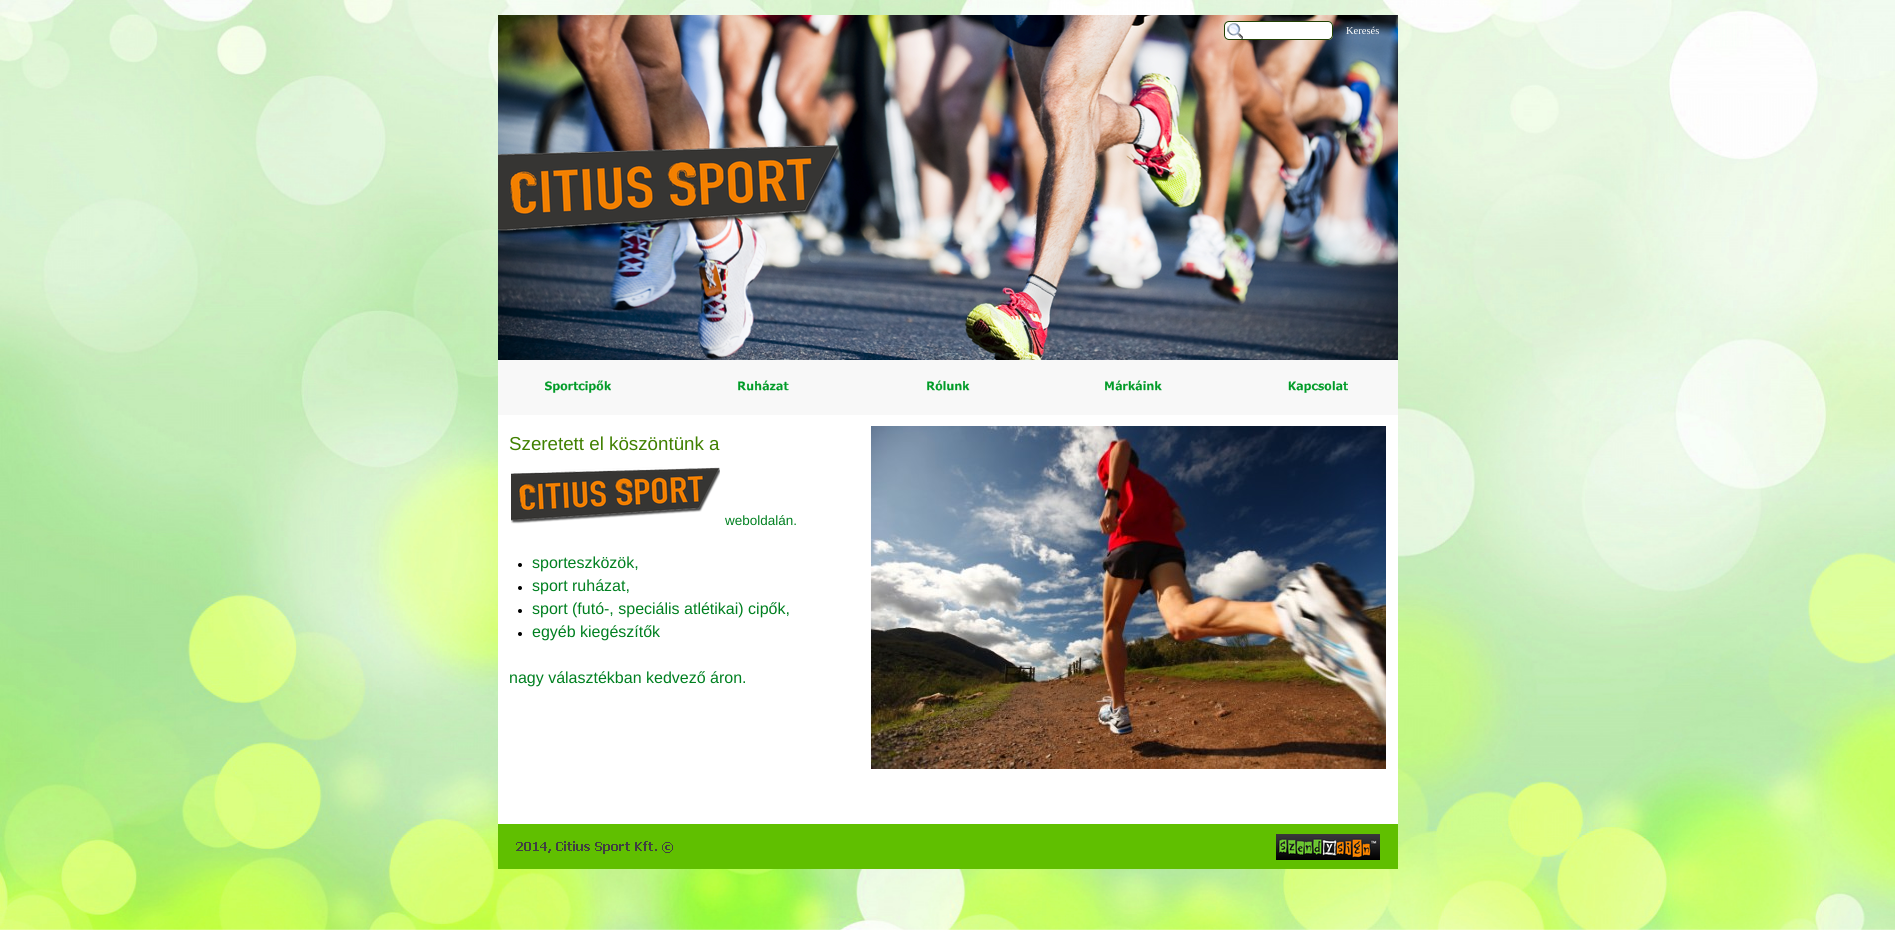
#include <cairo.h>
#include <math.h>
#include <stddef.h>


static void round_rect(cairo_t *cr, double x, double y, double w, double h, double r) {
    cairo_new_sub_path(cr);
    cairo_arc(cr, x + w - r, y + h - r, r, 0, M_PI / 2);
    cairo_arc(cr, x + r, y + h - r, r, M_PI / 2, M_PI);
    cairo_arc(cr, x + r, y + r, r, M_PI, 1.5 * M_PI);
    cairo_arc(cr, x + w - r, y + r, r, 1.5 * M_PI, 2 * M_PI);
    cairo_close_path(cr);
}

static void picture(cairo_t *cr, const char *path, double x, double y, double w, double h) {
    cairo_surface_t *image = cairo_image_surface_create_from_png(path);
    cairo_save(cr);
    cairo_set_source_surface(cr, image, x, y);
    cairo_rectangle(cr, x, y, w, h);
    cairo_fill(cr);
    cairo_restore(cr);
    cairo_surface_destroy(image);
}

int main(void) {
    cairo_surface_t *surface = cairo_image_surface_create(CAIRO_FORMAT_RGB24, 1895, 930);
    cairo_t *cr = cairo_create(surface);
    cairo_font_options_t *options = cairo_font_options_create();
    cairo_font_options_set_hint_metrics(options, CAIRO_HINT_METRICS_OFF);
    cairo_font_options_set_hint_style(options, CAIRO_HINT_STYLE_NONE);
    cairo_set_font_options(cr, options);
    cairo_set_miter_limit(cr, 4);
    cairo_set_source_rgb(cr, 1, 1, 1);
    cairo_paint(cr);
    picture(cr, "img1.png", 0, 0, 1895, 930);
    picture(cr, "img2.png", 498, 15, 900, 345);
    cairo_set_source_rgb(cr, 1, 1, 1);
    round_rect(cr, 1224, 21, 109, 19, 5);
    cairo_fill(cr);
    picture(cr, "img3.png", 1227, 23, 16, 16);
    round_rect(cr, 1224.5, 21.5, 108, 18, 4.5);
    cairo_set_source_rgb(cr, 0.125, 0.251, 0);
    cairo_set_line_width(cr, 1);
    cairo_stroke(cr);
    cairo_select_font_face(cr, "Liberation Serif", CAIRO_FONT_SLANT_NORMAL, CAIRO_FONT_WEIGHT_NORMAL);
    cairo_set_font_size(cr, 10.5);
    cairo_set_source_rgb(cr, 1, 1, 1);
    cairo_move_to(cr, 1346, 34);
    cairo_show_text(cr, "Keresés");
    cairo_set_source_rgb(cr, 0.969, 0.969, 0.969);
    cairo_rectangle(cr, 498, 360, 900, 55);
    cairo_fill(cr);
    picture(cr, "img4.png", 545, 380, 66, 13);
    picture(cr, "img5.png", 738, 380, 51, 11);
    picture(cr, "img6.png", 927, 380, 43, 11);
    picture(cr, "img7.png", 1105, 380, 57, 11);
    picture(cr, "img8.png", 1288, 381, 60, 12);
    cairo_set_source_rgb(cr, 1, 1, 1);
    cairo_rectangle(cr, 498, 415, 900, 409);
    cairo_fill(cr);
    cairo_select_font_face(cr, "Liberation Sans", CAIRO_FONT_SLANT_NORMAL, CAIRO_FONT_WEIGHT_NORMAL);
    cairo_set_font_size(cr, 18.75);
    cairo_set_source_rgb(cr, 0.251, 0.502, 0);
    cairo_move_to(cr, 509, 450);
    cairo_show_text(cr, "Szeretett el köszöntünk a");
    picture(cr, "img9.png", 511, 467, 209, 57);
    cairo_set_font_size(cr, 13.5);
    cairo_set_source_rgb(cr, 0, 0.502, 0.125);
    cairo_move_to(cr, 725, 525);
    cairo_show_text(cr, "weboldalán.");
    cairo_set_source_rgb(cr, 0, 0, 0);
    cairo_new_path(cr);
    cairo_arc(cr, 520, 565, 2, 0, 2 * M_PI);
    cairo_fill(cr);
    cairo_set_font_size(cr, 16);
    cairo_set_source_rgb(cr, 0, 0.502, 0.125);
    cairo_move_to(cr, 532, 568);
    cairo_show_text(cr, "sporteszközök,");
    cairo_set_source_rgb(cr, 0, 0, 0);
    cairo_new_path(cr);
    cairo_arc(cr, 520, 588, 2, 0, 2 * M_PI);
    cairo_fill(cr);
    cairo_set_source_rgb(cr, 0, 0.502, 0.125);
    cairo_move_to(cr, 532, 591);
    cairo_show_text(cr, "sport ruházat,");
    cairo_set_source_rgb(cr, 0, 0, 0);
    cairo_new_path(cr);
    cairo_arc(cr, 520, 611, 2, 0, 2 * M_PI);
    cairo_fill(cr);
    cairo_set_source_rgb(cr, 0, 0.502, 0.125);
    cairo_move_to(cr, 532, 614);
    cairo_show_text(cr, "sport (futó-, speciális atlétikai) cipők,");
    cairo_set_source_rgb(cr, 0, 0, 0);
    cairo_new_path(cr);
    cairo_arc(cr, 520, 634, 2, 0, 2 * M_PI);
    cairo_fill(cr);
    cairo_set_source_rgb(cr, 0, 0.502, 0.125);
    cairo_move_to(cr, 532, 637);
    cairo_show_text(cr, "egyéb kiegészítők");
    cairo_move_to(cr, 509, 683);
    cairo_show_text(cr, "nagy választékban kedvező áron.");
    picture(cr, "img10.png", 871, 426, 515, 343);
    cairo_set_source_rgb(cr, 0.376, 0.749, 0);
    cairo_rectangle(cr, 498, 824, 900, 45);
    cairo_fill(cr);
    picture(cr, "img11.png", 516, 834, 864, 26);
    cairo_surface_write_to_png(surface, "page.png");
    cairo_font_options_destroy(options);
    cairo_destroy(cr);
    cairo_surface_destroy(surface);
    return 0;
}
